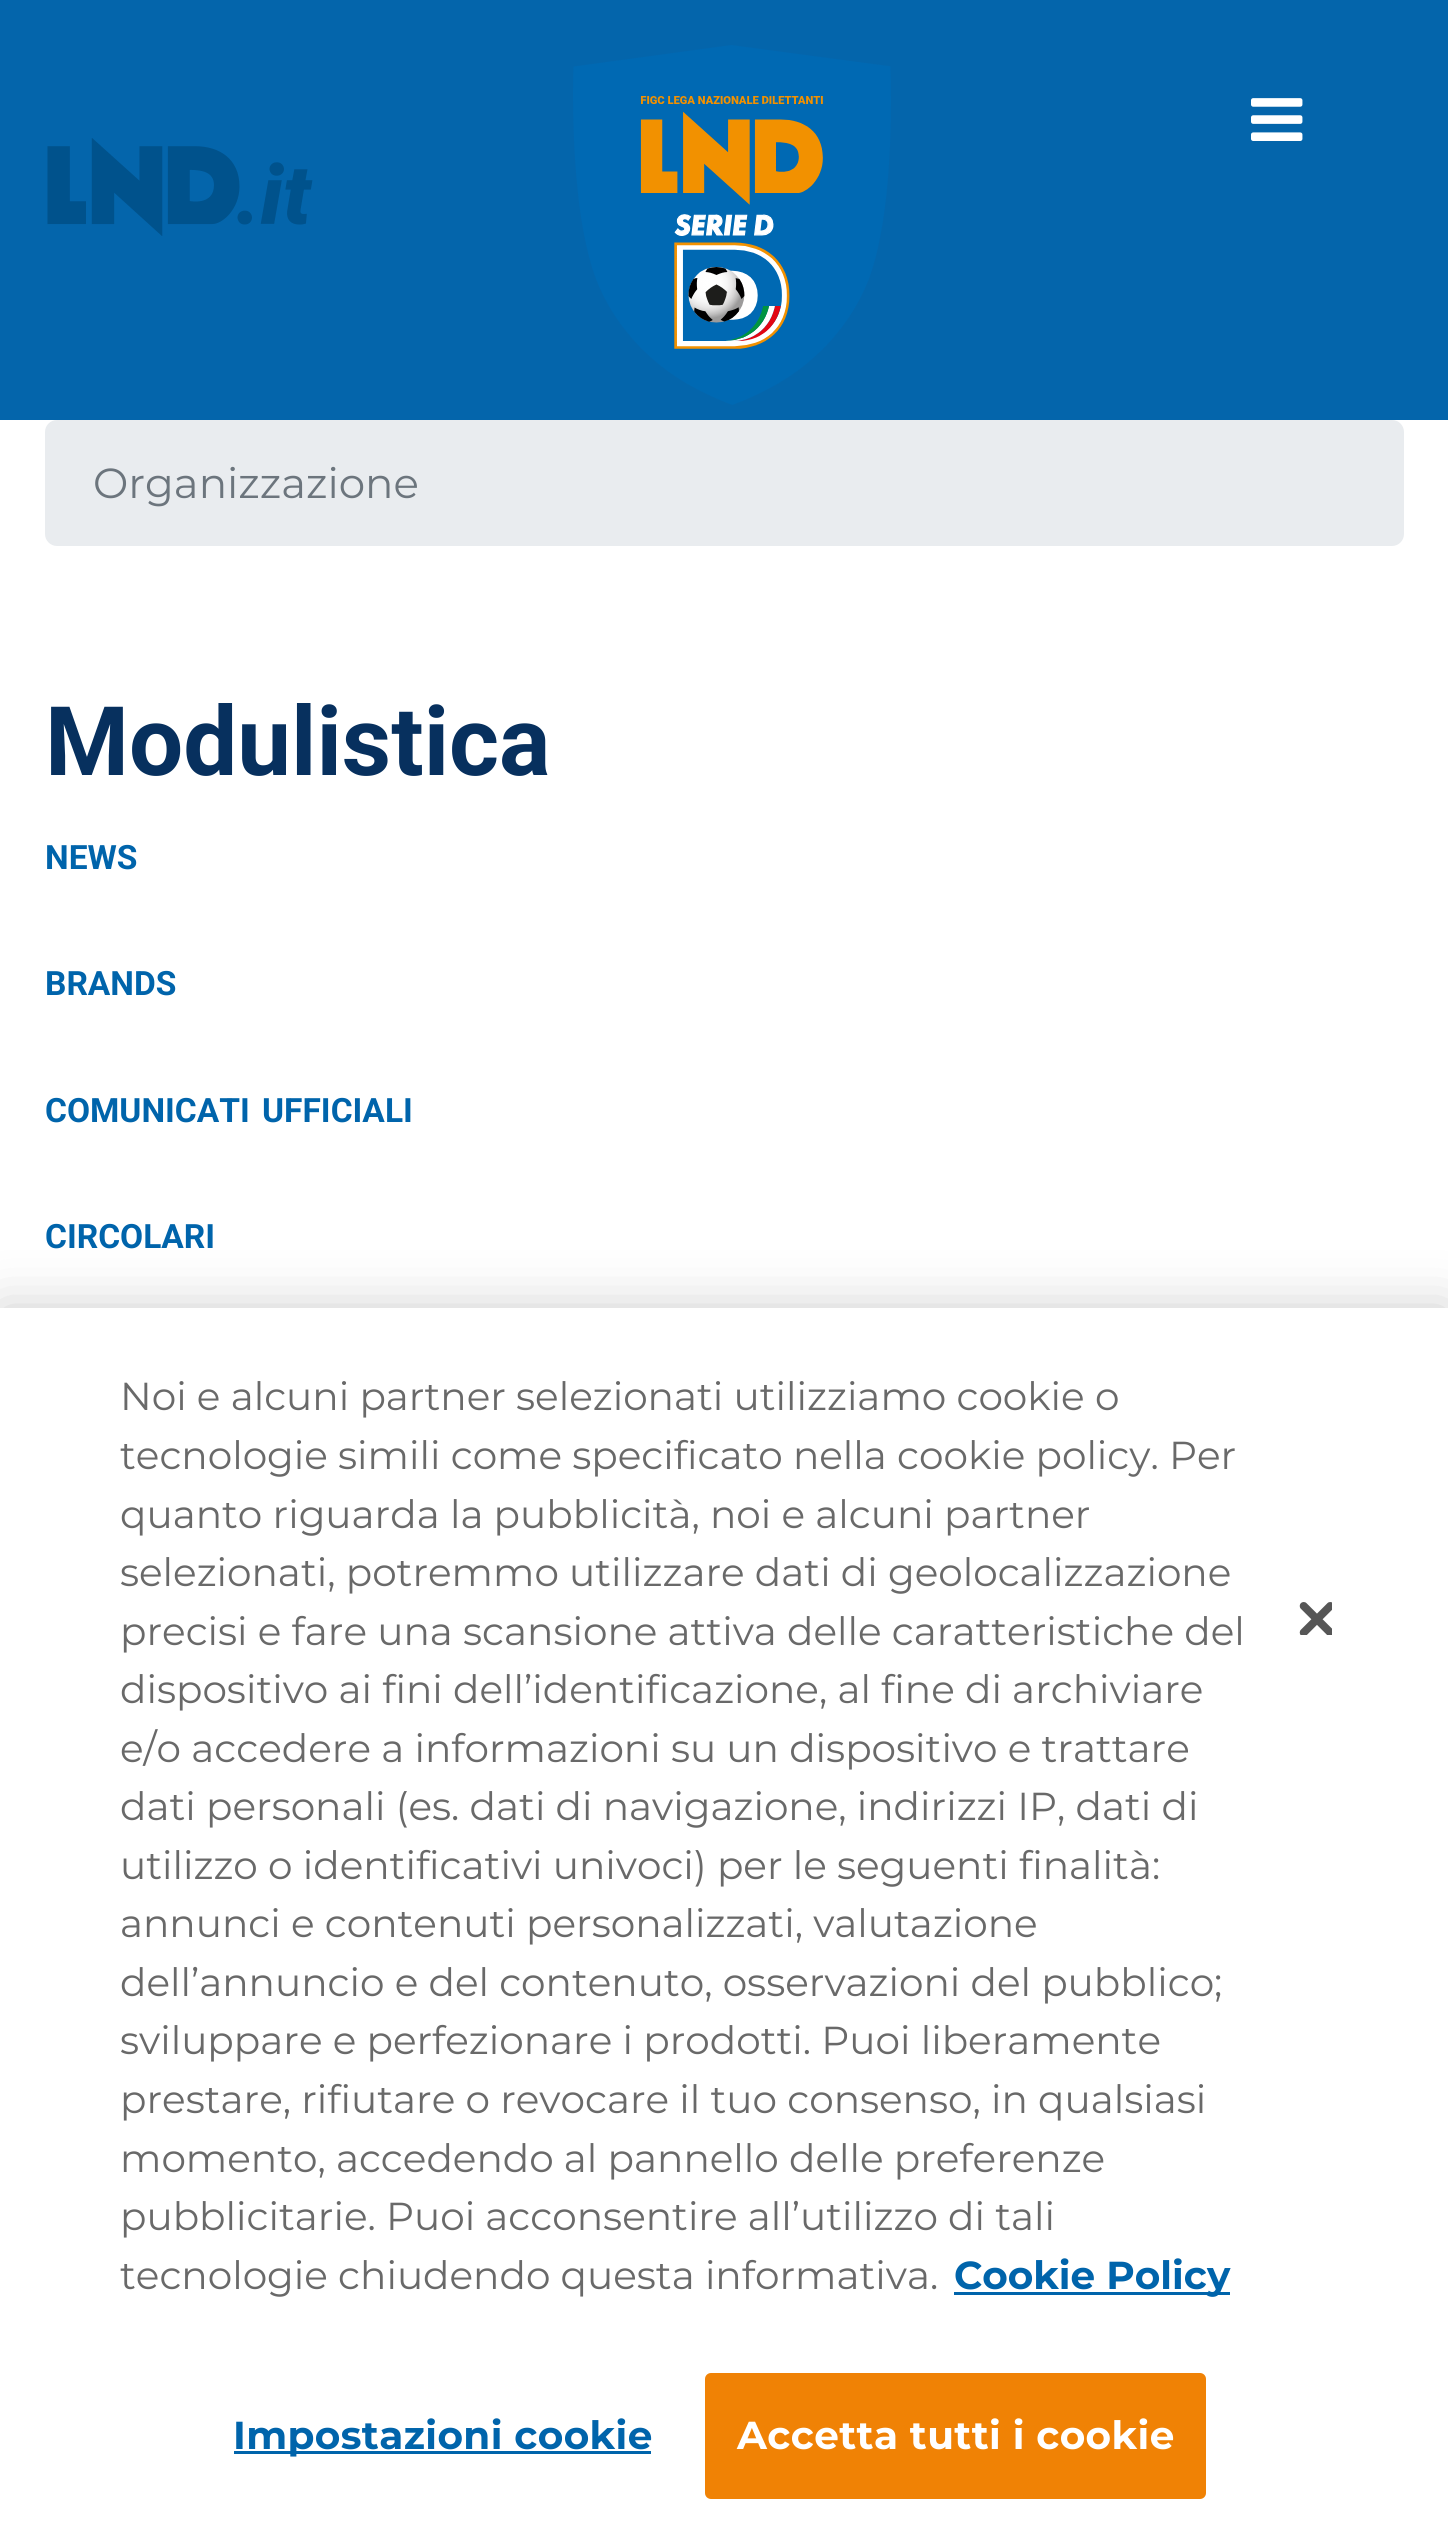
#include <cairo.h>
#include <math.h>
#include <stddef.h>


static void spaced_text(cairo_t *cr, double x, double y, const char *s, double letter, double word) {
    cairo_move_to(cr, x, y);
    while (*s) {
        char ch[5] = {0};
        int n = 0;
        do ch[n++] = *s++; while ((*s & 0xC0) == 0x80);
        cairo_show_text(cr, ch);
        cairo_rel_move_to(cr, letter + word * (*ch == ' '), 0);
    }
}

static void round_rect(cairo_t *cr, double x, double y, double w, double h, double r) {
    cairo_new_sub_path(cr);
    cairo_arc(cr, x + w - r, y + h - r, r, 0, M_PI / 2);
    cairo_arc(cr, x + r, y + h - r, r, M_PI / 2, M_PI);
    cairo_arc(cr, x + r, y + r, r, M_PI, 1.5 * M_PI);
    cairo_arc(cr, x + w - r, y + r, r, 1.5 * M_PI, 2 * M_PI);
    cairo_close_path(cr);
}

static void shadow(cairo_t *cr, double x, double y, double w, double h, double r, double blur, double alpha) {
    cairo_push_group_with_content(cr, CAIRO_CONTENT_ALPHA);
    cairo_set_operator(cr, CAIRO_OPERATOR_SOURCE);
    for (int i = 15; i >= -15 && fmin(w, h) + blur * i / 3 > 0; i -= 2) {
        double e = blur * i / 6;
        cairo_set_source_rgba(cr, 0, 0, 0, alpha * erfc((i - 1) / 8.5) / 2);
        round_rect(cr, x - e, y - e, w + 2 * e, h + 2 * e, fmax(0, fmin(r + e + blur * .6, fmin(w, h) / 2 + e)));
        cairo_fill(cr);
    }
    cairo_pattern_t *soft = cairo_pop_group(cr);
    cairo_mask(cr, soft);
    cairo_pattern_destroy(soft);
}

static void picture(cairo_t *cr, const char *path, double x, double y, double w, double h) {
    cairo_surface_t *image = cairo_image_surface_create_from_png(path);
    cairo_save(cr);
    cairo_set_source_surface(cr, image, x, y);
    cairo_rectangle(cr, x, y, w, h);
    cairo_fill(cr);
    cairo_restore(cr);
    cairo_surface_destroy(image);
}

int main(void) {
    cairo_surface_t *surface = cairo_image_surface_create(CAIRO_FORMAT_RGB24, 1448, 2545);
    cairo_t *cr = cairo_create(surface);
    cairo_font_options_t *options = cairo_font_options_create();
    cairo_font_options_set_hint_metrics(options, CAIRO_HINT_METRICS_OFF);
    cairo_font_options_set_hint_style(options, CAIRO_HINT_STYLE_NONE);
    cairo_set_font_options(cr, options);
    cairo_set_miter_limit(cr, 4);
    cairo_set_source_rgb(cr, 1, 1, 1);
    cairo_paint(cr);
    cairo_set_source_rgb(cr, 0.016, 0.396, 0.671);
    cairo_rectangle(cr, 0, 0, 1448, 420);
    cairo_fill(cr);
    picture(cr, "img1.png", 573, 45, 318, 360);
    picture(cr, "img2.png", 1251, 98, 52, 43);
    picture(cr, "img3.png", 47, 138, 266, 98);
    cairo_set_source_rgb(cr, 0.914, 0.925, 0.937);
    round_rect(cr, 45, 420, 1359, 126, 12);
    cairo_fill(cr);
    cairo_select_font_face(cr, "Montserrat", CAIRO_FONT_SLANT_NORMAL, CAIRO_FONT_WEIGHT_NORMAL);
    cairo_set_font_size(cr, 42);
    cairo_set_source_rgb(cr, 0.424, 0.459, 0.49);
    cairo_move_to(cr, 93, 498);
    cairo_show_text(cr, "Organizzazione");
    cairo_select_font_face(cr, "Roboto", CAIRO_FONT_SLANT_NORMAL, CAIRO_FONT_WEIGHT_BOLD);
    cairo_set_font_size(cr, 96);
    cairo_set_source_rgb(cr, 0.031, 0.188, 0.369);
    cairo_move_to(cr, 45, 775);
    cairo_show_text(cr, "Modulistica");
    cairo_set_font_size(cr, 33.5);
    cairo_set_source_rgb(cr, 0, 0.392, 0.671);
    cairo_move_to(cr, 45, 869);
    cairo_show_text(cr, "NEWS");
    cairo_move_to(cr, 45, 995);
    cairo_show_text(cr, "BRANDS");
    cairo_move_to(cr, 45, 1122);
    cairo_show_text(cr, "COMUNICATI");
    cairo_move_to(cr, 262, 1122);
    cairo_show_text(cr, "UFFICIALI");
    cairo_move_to(cr, 45, 1248);
    cairo_show_text(cr, "CIRCOLARI");
    cairo_set_source_rgb(cr, 0, 0, 0);
    shadow(cr, 0, 1308, 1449, 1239, 0, 27, 0.2);
    cairo_set_source_rgb(cr, 1, 1, 1);
    cairo_rectangle(cr, 0, 1308, 1448, 1237);
    cairo_fill(cr);
    cairo_select_font_face(cr, "Montserrat", CAIRO_FONT_SLANT_NORMAL, CAIRO_FONT_WEIGHT_NORMAL);
    cairo_set_font_size(cr, 39);
    cairo_set_source_rgb(cr, 0.412, 0.412, 0.412);
    cairo_move_to(cr, 120, 1410);
    cairo_show_text(cr, "Noi e alcuni partner selezionati utilizziamo cookie o");
    cairo_move_to(cr, 120, 1469);
    cairo_show_text(cr, "tecnologie simili come specificato nella cookie policy. Per");
    cairo_move_to(cr, 120, 1528);
    cairo_show_text(cr, "quanto riguarda la pubblicità, noi e alcuni partner");
    cairo_move_to(cr, 120, 1586);
    cairo_show_text(cr, "selezionati, potremmo utilizzare dati di geolocalizzazione");
    cairo_move_to(cr, 120, 1645);
    cairo_show_text(cr, "precisi e fare una scansione attiva delle caratteristiche del");
    cairo_move_to(cr, 120, 1703);
    cairo_show_text(cr, "dispositivo ai fini dell’identificazione, al fine di archiviare");
    cairo_move_to(cr, 120, 1762);
    cairo_show_text(cr, "e/o accedere a informazioni su un dispositivo e trattare");
    cairo_move_to(cr, 120, 1820);
    cairo_show_text(cr, "dati personali (es. dati di navigazione, indirizzi IP, dati di");
    cairo_move_to(cr, 120, 1879);
    cairo_show_text(cr, "utilizzo o identificativi univoci) per le seguenti finalità:");
    cairo_move_to(cr, 120, 1937);
    cairo_show_text(cr, "annunci e contenuti personalizzati, valutazione");
    cairo_move_to(cr, 120, 1996);
    cairo_show_text(cr, "dell’annuncio e del contenuto, osservazioni del pubblico;");
    cairo_move_to(cr, 120, 2054);
    cairo_show_text(cr, "sviluppare e perfezionare i prodotti. Puoi liberamente");
    cairo_move_to(cr, 120, 2113);
    cairo_show_text(cr, "prestare, rifiutare o revocare il tuo consenso, in qualsiasi");
    cairo_move_to(cr, 120, 2172);
    cairo_show_text(cr, "momento, accedendo al pannello delle preferenze");
    cairo_move_to(cr, 120, 2230);
    cairo_show_text(cr, "pubblicitarie. Puoi acconsentire all’utilizzo di tali");
    cairo_move_to(cr, 120, 2289);
    cairo_show_text(cr, "tecnologie chiudendo questa informativa.");
    cairo_set_source_rgb(cr, 0, 0.392, 0.671);
    cairo_rectangle(cr, 954, 2292, 276, 3);
    cairo_fill(cr);
    cairo_select_font_face(cr, "Montserrat", CAIRO_FONT_SLANT_NORMAL, CAIRO_FONT_WEIGHT_BOLD);
    cairo_move_to(cr, 954, 2289);
    cairo_show_text(cr, "Cookie Policy");
    picture(cr, "img4.png", 1299, 1602, 33, 33);
    cairo_rectangle(cr, 234, 2451, 417, 3);
    cairo_fill(cr);
    spaced_text(cr, 233, 2449, "Impostazioni cookie", 0.4, 0);
    cairo_set_source_rgb(cr, 0.941, 0.51, 0.02);
    round_rect(cr, 706.5, 2374.5, 498, 123, 4.5);
    cairo_fill_preserve(cr);
    cairo_set_line_width(cr, 3);
    cairo_stroke(cr);
    cairo_set_source_rgb(cr, 1, 1, 1);
    spaced_text(cr, 737, 2449, "Accetta tutti i cookie", 0.4, 0);
    cairo_surface_write_to_png(surface, "page.png");
    cairo_font_options_destroy(options);
    cairo_destroy(cr);
    cairo_surface_destroy(surface);
    return 0;
}
